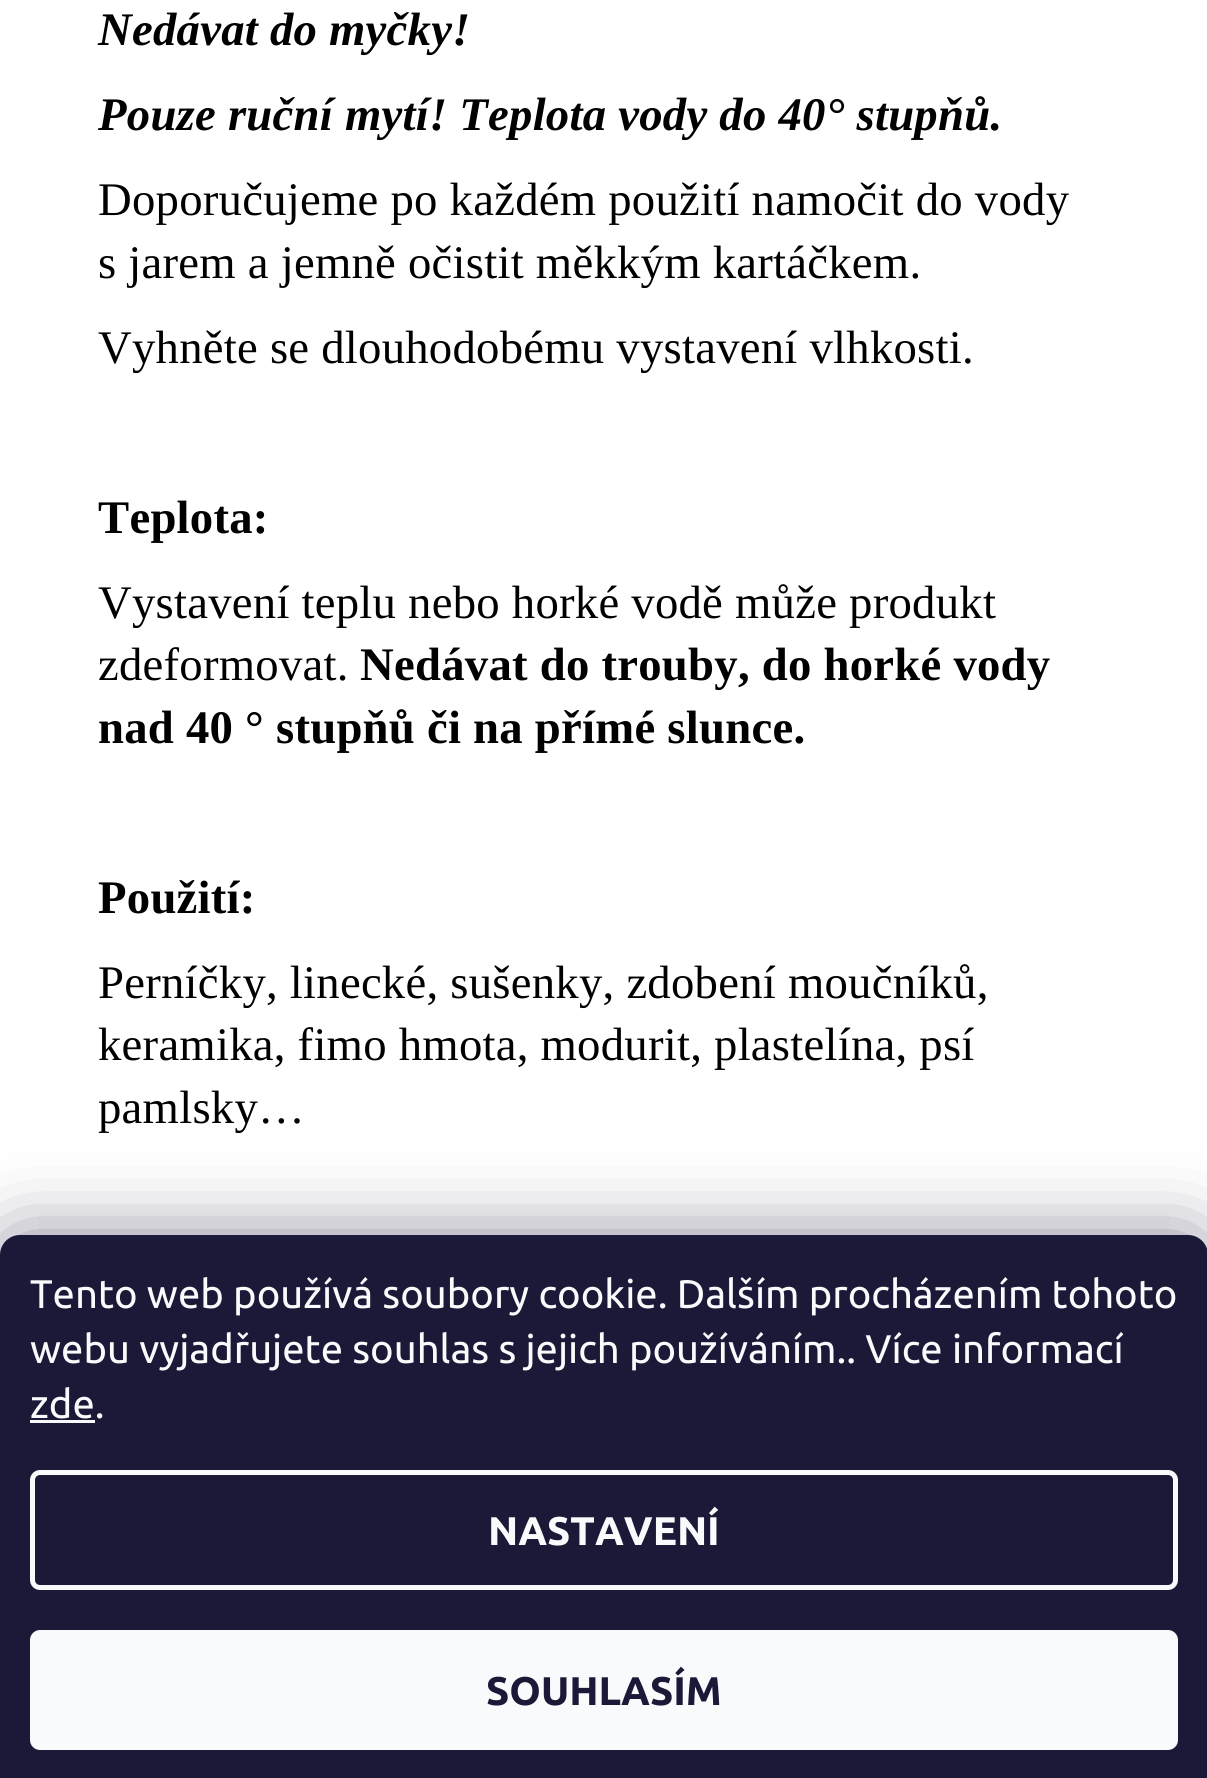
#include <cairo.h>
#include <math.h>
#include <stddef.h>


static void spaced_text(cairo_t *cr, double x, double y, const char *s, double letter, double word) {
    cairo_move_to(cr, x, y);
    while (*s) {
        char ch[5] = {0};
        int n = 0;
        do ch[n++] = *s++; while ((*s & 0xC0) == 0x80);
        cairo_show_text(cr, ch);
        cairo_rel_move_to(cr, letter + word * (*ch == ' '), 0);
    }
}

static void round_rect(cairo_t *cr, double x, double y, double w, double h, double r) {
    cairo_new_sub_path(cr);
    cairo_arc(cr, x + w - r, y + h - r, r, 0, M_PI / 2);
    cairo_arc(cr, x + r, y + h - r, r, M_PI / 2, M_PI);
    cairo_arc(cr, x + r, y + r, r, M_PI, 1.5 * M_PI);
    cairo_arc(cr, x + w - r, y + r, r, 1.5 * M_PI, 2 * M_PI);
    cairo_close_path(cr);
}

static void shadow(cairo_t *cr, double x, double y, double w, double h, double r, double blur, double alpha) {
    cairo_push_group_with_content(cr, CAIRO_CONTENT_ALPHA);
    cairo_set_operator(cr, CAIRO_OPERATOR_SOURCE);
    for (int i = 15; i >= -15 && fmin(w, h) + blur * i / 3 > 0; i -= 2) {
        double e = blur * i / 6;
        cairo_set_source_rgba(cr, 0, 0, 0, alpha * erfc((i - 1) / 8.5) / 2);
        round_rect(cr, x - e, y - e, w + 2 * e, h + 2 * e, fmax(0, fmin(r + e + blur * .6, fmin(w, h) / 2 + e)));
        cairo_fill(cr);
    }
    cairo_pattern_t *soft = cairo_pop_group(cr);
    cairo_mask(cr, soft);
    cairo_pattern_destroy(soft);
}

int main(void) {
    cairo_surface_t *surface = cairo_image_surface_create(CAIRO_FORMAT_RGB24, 1207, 1778);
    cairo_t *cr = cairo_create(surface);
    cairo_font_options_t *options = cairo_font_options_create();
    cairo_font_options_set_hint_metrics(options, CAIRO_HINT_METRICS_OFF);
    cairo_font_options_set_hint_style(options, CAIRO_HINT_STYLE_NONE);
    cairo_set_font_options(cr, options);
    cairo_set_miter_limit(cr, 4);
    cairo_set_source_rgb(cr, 1, 1, 1);
    cairo_paint(cr);
    cairo_select_font_face(cr, "Liberation Serif", CAIRO_FONT_SLANT_ITALIC, CAIRO_FONT_WEIGHT_BOLD);
    cairo_set_font_size(cr, 46.7);
    cairo_set_source_rgb(cr, 0, 0, 0);
    spaced_text(cr, 98, 45, "Nedávat do myčky!", 0.25, 0);
    spaced_text(cr, 98, 130, "Pouze ruční mytí! Teplota vody do 40° stupňů.", 0.25, 0);
    cairo_select_font_face(cr, "Liberation Serif", CAIRO_FONT_SLANT_NORMAL, CAIRO_FONT_WEIGHT_NORMAL);
    spaced_text(cr, 98, 215, "Doporučujeme po každém použití namočit do vody", 0.25, 0);
    spaced_text(cr, 98, 278, "s jarem a jemně očistit měkkým kartáčkem.", 0.25, 0);
    spaced_text(cr, 98, 363, "Vyhněte se dlouhodobému vystavení vlhkosti.", 0.25, 0);
    cairo_select_font_face(cr, "Liberation Serif", CAIRO_FONT_SLANT_NORMAL, CAIRO_FONT_WEIGHT_BOLD);
    spaced_text(cr, 98, 533, "Teplota:", 0.25, 0);
    cairo_select_font_face(cr, "Liberation Serif", CAIRO_FONT_SLANT_NORMAL, CAIRO_FONT_WEIGHT_NORMAL);
    spaced_text(cr, 98, 618, "Vystavení teplu nebo horké vodě může produkt", 0.25, 0);
    spaced_text(cr, 98, 680, "zdeformovat.", 0.25, 0);
    cairo_select_font_face(cr, "Liberation Serif", CAIRO_FONT_SLANT_NORMAL, CAIRO_FONT_WEIGHT_BOLD);
    spaced_text(cr, 360, 680, "Nedávat do trouby, do horké vody", 0.25, 0);
    spaced_text(cr, 98, 743, "nad 40 ° stupňů či na přímé slunce.", 0.25, 0);
    spaced_text(cr, 98, 913, "Použití:", 0.25, 0);
    cairo_select_font_face(cr, "Liberation Serif", CAIRO_FONT_SLANT_NORMAL, CAIRO_FONT_WEIGHT_NORMAL);
    spaced_text(cr, 98, 998, "Perníčky, linecké, sušenky, zdobení moučníků,", 0.25, 0);
    spaced_text(cr, 98, 1060, "keramika, fimo hmota, modurit, plastelína, psí", 0.25, 0);
    spaced_text(cr, 98, 1123, "pamlsky…", 0.25, 0);
    cairo_set_source_rgb(cr, 0.988, 0.988, 0.988);
    cairo_rectangle(cr, 38, 1213, 1132, 22);
    cairo_fill(cr);
    cairo_set_source_rgb(cr, 0.106, 0.098, 0.224);
    shadow(cr, 0, 1235, 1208, 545, 20, 37.5, 0.5);
    cairo_set_source_rgb(cr, 0.102, 0.098, 0.216);
    cairo_new_path(cr);
    cairo_move_to(cr, 20, 1235);
    cairo_line_to(cr, 1188, 1235);
    cairo_curve_to(cr, 1199, 1235, 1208, 1244, 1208, 1255);
    cairo_line_to(cr, 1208, 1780);
    cairo_line_to(cr, 0, 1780);
    cairo_line_to(cr, 0, 1255);
    cairo_curve_to(cr, 0, 1244, 9, 1235, 20, 1235);
    cairo_close_path(cr);
    cairo_fill(cr);
    cairo_select_font_face(cr, "Ubuntu", CAIRO_FONT_SLANT_NORMAL, CAIRO_FONT_WEIGHT_NORMAL);
    cairo_set_font_size(cr, 40);
    cairo_set_source_rgb(cr, 0.973, 0.98, 0.984);
    cairo_move_to(cr, 30, 1308);
    cairo_show_text(cr, "Tento web používá soubory cookie. Dalším procházením tohoto");
    cairo_move_to(cr, 30, 1363);
    cairo_show_text(cr, "webu vyjadřujete souhlas s jejich používáním.. Více informací");
    cairo_move_to(cr, 30, 1418);
    cairo_show_text(cr, "zde.");
    cairo_rectangle(cr, 30, 1420, 65, 3);
    cairo_fill(cr);
    round_rect(cr, 32.5, 1472.5, 1143, 115, 7.5);
    cairo_set_line_width(cr, 5);
    cairo_stroke(cr);
    cairo_select_font_face(cr, "Ubuntu", CAIRO_FONT_SLANT_NORMAL, CAIRO_FONT_WEIGHT_BOLD);
    cairo_move_to(cr, 488, 1545);
    cairo_show_text(cr, "NASTAVENÍ");
    round_rect(cr, 30, 1630, 1148, 120, 10);
    cairo_fill(cr);
    cairo_set_source_rgb(cr, 0.102, 0.098, 0.216);
    cairo_move_to(cr, 486, 1705);
    cairo_show_text(cr, "SOUHLASÍM");
    cairo_surface_write_to_png(surface, "page.png");
    cairo_font_options_destroy(options);
    cairo_destroy(cr);
    cairo_surface_destroy(surface);
    return 0;
}
